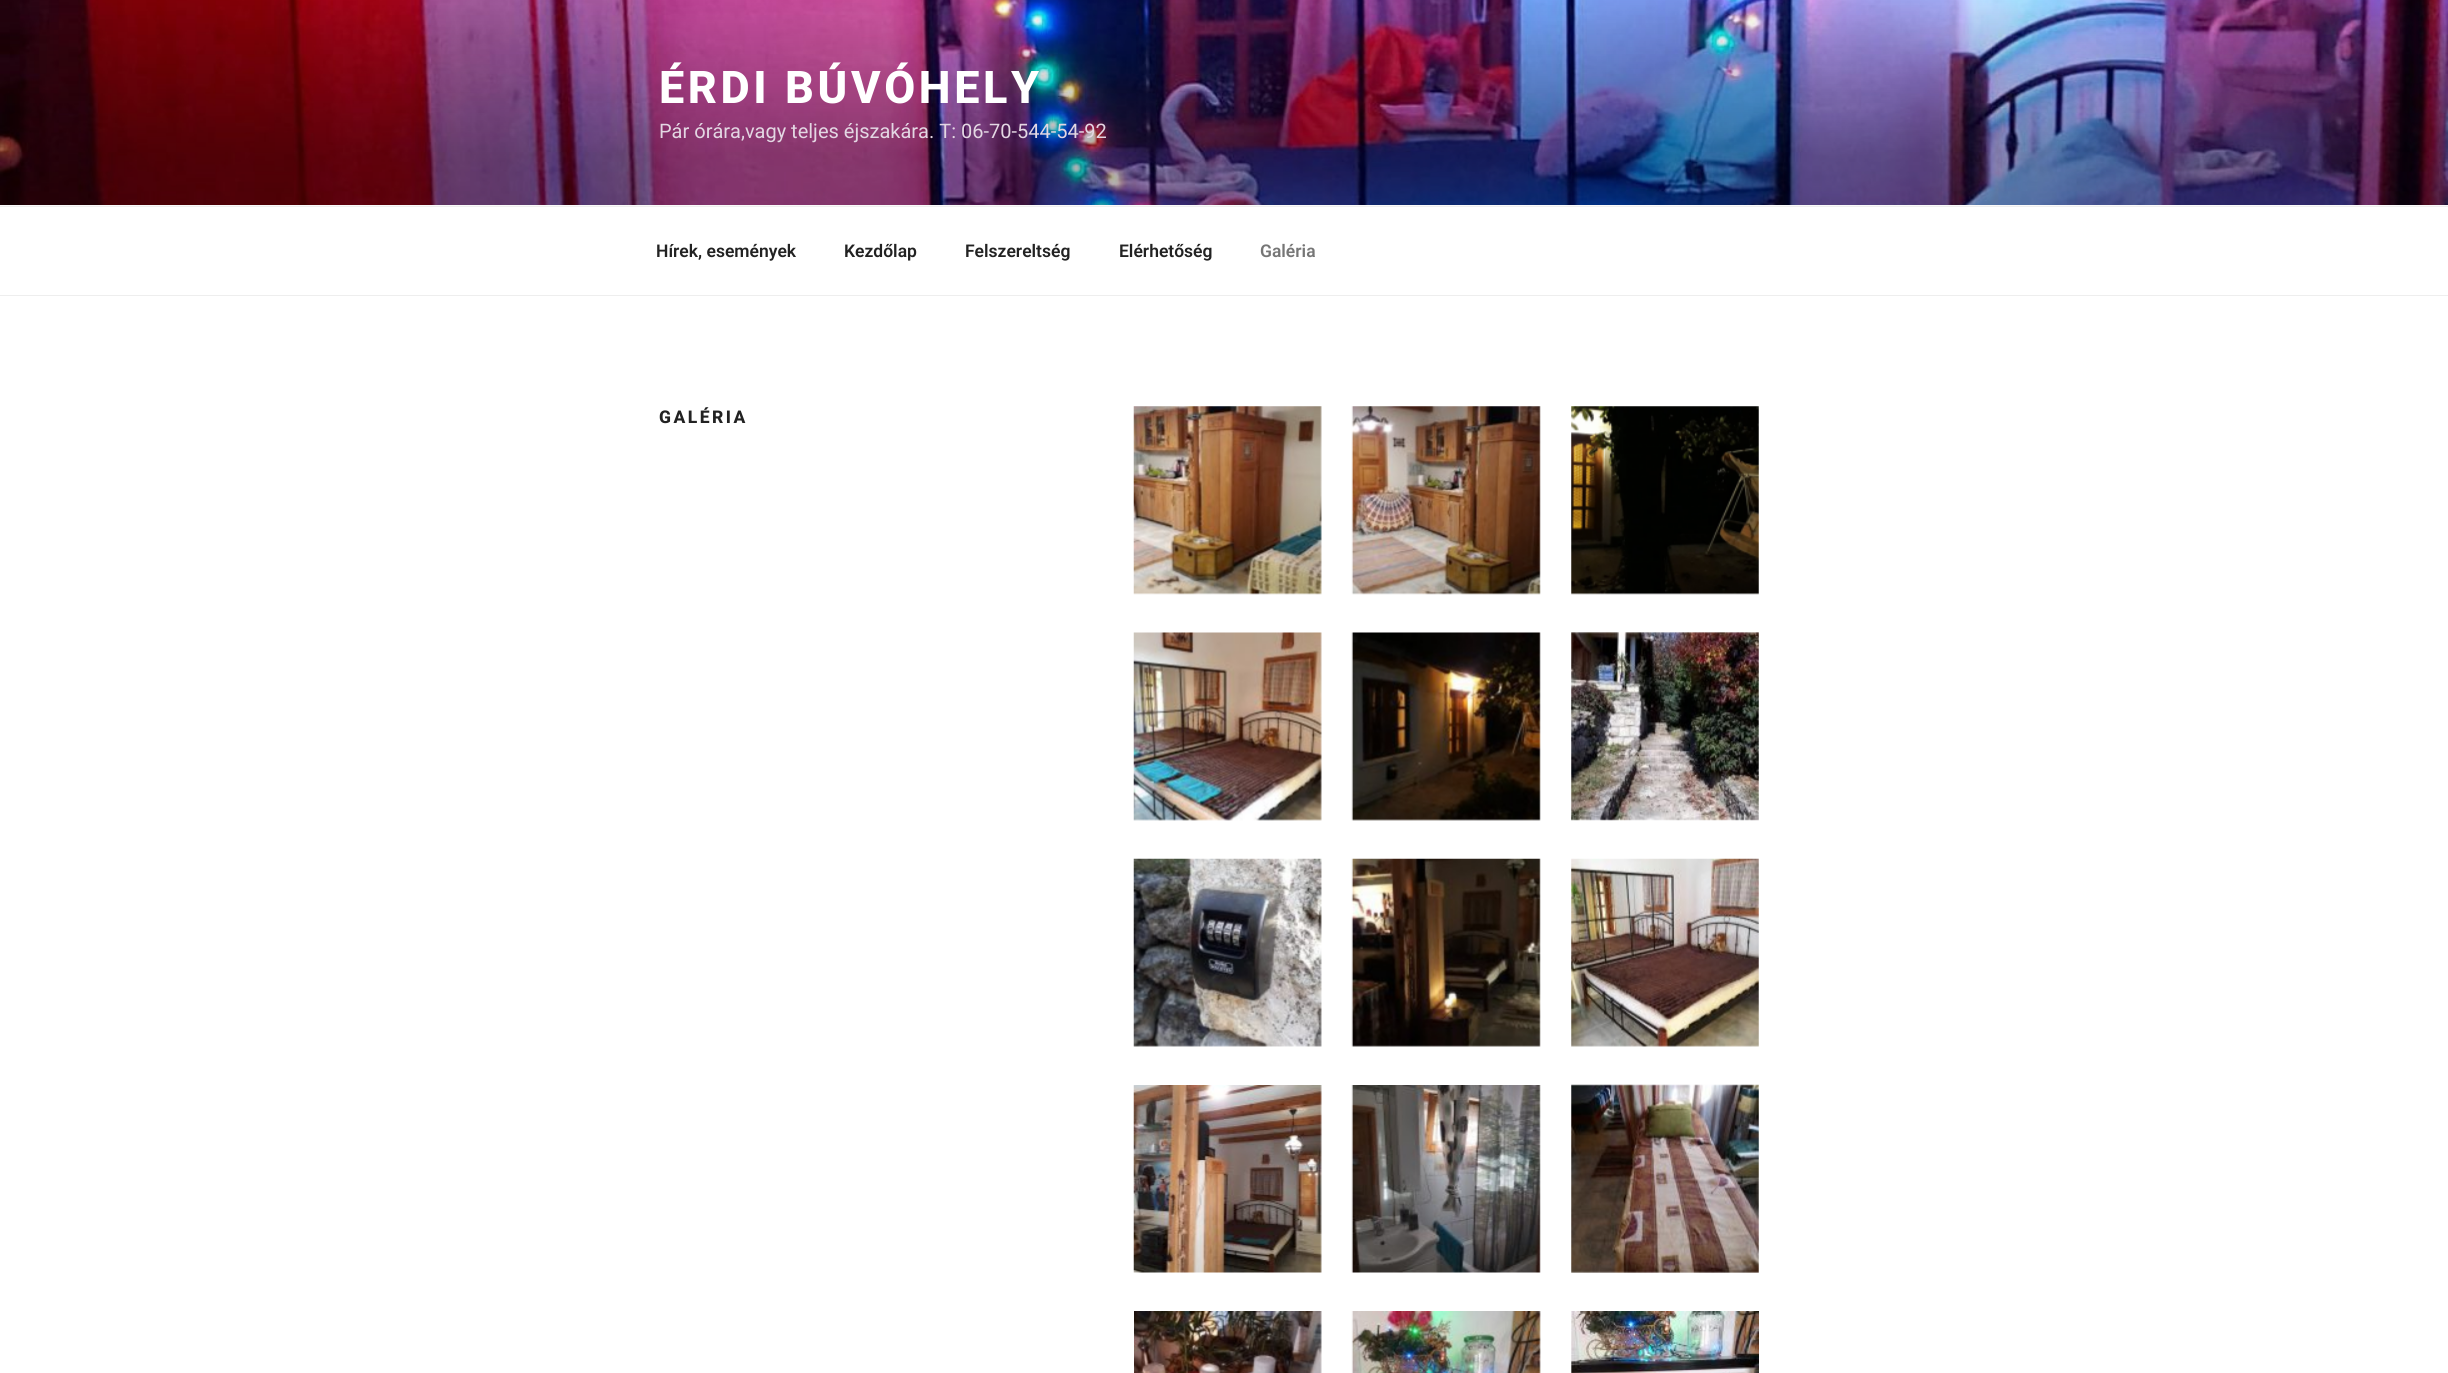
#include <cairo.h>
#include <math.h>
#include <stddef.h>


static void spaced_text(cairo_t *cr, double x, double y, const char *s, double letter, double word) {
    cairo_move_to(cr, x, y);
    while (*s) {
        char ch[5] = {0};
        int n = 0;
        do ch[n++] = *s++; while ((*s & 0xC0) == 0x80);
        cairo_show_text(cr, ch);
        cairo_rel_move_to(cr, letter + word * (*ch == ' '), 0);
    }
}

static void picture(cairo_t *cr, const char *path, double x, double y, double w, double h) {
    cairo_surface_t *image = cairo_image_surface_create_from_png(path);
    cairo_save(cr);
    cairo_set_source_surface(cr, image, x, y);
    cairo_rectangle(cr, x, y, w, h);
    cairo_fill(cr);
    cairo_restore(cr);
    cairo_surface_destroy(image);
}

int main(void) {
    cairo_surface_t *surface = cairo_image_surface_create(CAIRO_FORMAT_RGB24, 2448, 1373);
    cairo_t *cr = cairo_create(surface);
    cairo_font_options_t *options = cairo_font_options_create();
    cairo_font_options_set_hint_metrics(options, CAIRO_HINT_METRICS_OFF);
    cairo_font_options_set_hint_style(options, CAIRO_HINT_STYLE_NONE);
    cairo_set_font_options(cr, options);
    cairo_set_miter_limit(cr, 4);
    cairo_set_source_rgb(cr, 1, 1, 1);
    cairo_paint(cr);
    cairo_set_source_rgb(cr, 0.98, 0.98, 0.98);
    cairo_rectangle(cr, 0, 205, 2448, 1);
    cairo_fill(cr);
    picture(cr, "img1.png", 0, 0, 2448, 205);
    cairo_select_font_face(cr, "Roboto ExtraBold", CAIRO_FONT_SLANT_NORMAL, CAIRO_FONT_WEIGHT_NORMAL);
    cairo_set_font_size(cr, 45);
    cairo_set_source_rgb(cr, 1, 1, 1);
    spaced_text(cr, 659, 103, "ÉRDI BÚVÓHELY", 3.6, 0);
    cairo_select_font_face(cr, "Roboto", CAIRO_FONT_SLANT_NORMAL, CAIRO_FONT_WEIGHT_NORMAL);
    cairo_set_font_size(cr, 20);
    cairo_set_source_rgb(cr, 0.89, 0.843, 0.89);
    cairo_move_to(cr, 659, 138);
    cairo_show_text(cr, "Pár órára,vagy teljes éjszakára. T: 06-70-544-54-92");
    cairo_set_source_rgb(cr, 0.933, 0.933, 0.933);
    cairo_rectangle(cr, 0, 206, 2448, 1);
    cairo_fill(cr);
    cairo_rectangle(cr, 0, 295, 2448, 1);
    cairo_fill(cr);
    cairo_select_font_face(cr, "Roboto SemiBold", CAIRO_FONT_SLANT_NORMAL, CAIRO_FONT_WEIGHT_NORMAL);
    cairo_set_font_size(cr, 17.5);
    cairo_set_source_rgb(cr, 0.133, 0.133, 0.133);
    cairo_move_to(cr, 656, 257);
    cairo_show_text(cr, "Hírek, események");
    cairo_move_to(cr, 844, 257);
    cairo_show_text(cr, "Kezdőlap");
    cairo_move_to(cr, 965, 257);
    cairo_show_text(cr, "Felszereltség");
    cairo_move_to(cr, 1119, 257);
    cairo_show_text(cr, "Elérhetőség");
    cairo_set_source_rgb(cr, 0.463, 0.463, 0.463);
    cairo_move_to(cr, 1260, 257);
    cairo_show_text(cr, "Galéria");
    cairo_select_font_face(cr, "Roboto ExtraBold", CAIRO_FONT_SLANT_NORMAL, CAIRO_FONT_WEIGHT_NORMAL);
    cairo_set_source_rgb(cr, 0.133, 0.133, 0.133);
    spaced_text(cr, 659, 423, "GALÉRIA", 2.5, 0);
    picture(cr, "img2.png", 1133, 406, 189, 189);
    picture(cr, "img3.png", 1351, 406, 190, 189);
    picture(cr, "img4.png", 1571, 406, 188, 189);
    picture(cr, "img5.png", 1133, 632, 189, 189);
    picture(cr, "img6.png", 1351, 632, 190, 189);
    picture(cr, "img7.png", 1571, 632, 188, 189);
    picture(cr, "img8.png", 1133, 858, 189, 189);
    picture(cr, "img9.png", 1351, 858, 190, 189);
    picture(cr, "img10.png", 1571, 858, 188, 189);
    picture(cr, "img11.png", 1133, 1085, 189, 188);
    picture(cr, "img12.png", 1351, 1085, 190, 188);
    picture(cr, "img13.png", 1571, 1084, 188, 189);
    picture(cr, "img14.png", 1134, 1311, 188, 62);
    picture(cr, "img15.png", 1351, 1311, 190, 62);
    picture(cr, "img16.png", 1571, 1311, 188, 62);
    cairo_surface_write_to_png(surface, "page.png");
    cairo_font_options_destroy(options);
    cairo_destroy(cr);
    cairo_surface_destroy(surface);
    return 0;
}
